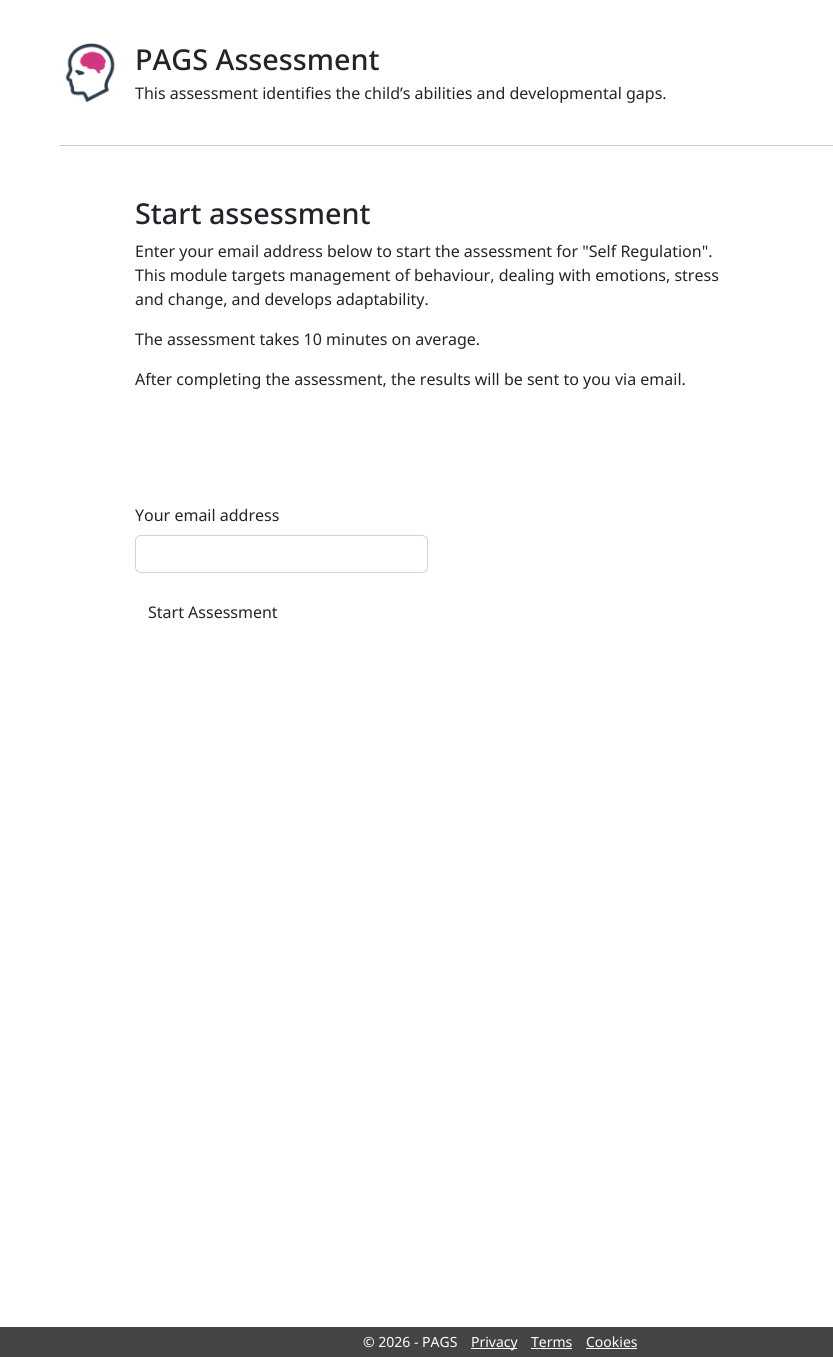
#include <cairo.h>
#include <math.h>
#include <stddef.h>


static void round_rect(cairo_t *cr, double x, double y, double w, double h, double r) {
    cairo_new_sub_path(cr);
    cairo_arc(cr, x + w - r, y + h - r, r, 0, M_PI / 2);
    cairo_arc(cr, x + r, y + h - r, r, M_PI / 2, M_PI);
    cairo_arc(cr, x + r, y + r, r, M_PI, 1.5 * M_PI);
    cairo_arc(cr, x + w - r, y + r, r, 1.5 * M_PI, 2 * M_PI);
    cairo_close_path(cr);
}

static void picture(cairo_t *cr, const char *path, double x, double y, double w, double h) {
    cairo_surface_t *image = cairo_image_surface_create_from_png(path);
    cairo_save(cr);
    cairo_set_source_surface(cr, image, x, y);
    cairo_rectangle(cr, x, y, w, h);
    cairo_fill(cr);
    cairo_restore(cr);
    cairo_surface_destroy(image);
}

int main(void) {
    cairo_surface_t *surface = cairo_image_surface_create(CAIRO_FORMAT_RGB24, 833, 1357);
    cairo_t *cr = cairo_create(surface);
    cairo_font_options_t *options = cairo_font_options_create();
    cairo_font_options_set_hint_metrics(options, CAIRO_HINT_METRICS_OFF);
    cairo_font_options_set_hint_style(options, CAIRO_HINT_STYLE_NONE);
    cairo_set_font_options(cr, options);
    cairo_set_miter_limit(cr, 4);
    cairo_set_source_rgb(cr, 1, 1, 1);
    cairo_paint(cr);
    picture(cr, "img1.png", 65, 43, 50, 59);
    cairo_select_font_face(cr, "Noto Sans Medium", CAIRO_FONT_SLANT_NORMAL, CAIRO_FONT_WEIGHT_NORMAL);
    cairo_set_font_size(cr, 28.75);
    cairo_set_source_rgb(cr, 0.129, 0.145, 0.161);
    cairo_move_to(cr, 135, 70);
    cairo_show_text(cr, "PAGS Assessment");
    cairo_select_font_face(cr, "Noto Sans", CAIRO_FONT_SLANT_NORMAL, CAIRO_FONT_WEIGHT_NORMAL);
    cairo_set_font_size(cr, 16);
    cairo_move_to(cr, 135, 99);
    cairo_show_text(cr, "This assessment identifies the child’s abilities and developmental gaps.");
    cairo_set_source_rgb(cr, 0.784, 0.788, 0.792);
    cairo_rectangle(cr, 60, 145, 773, 1);
    cairo_fill(cr);
    cairo_select_font_face(cr, "Noto Sans Medium", CAIRO_FONT_SLANT_NORMAL, CAIRO_FONT_WEIGHT_NORMAL);
    cairo_set_font_size(cr, 28.75);
    cairo_set_source_rgb(cr, 0.129, 0.145, 0.161);
    cairo_move_to(cr, 135, 224);
    cairo_show_text(cr, "Start assessment");
    cairo_select_font_face(cr, "Noto Sans", CAIRO_FONT_SLANT_NORMAL, CAIRO_FONT_WEIGHT_NORMAL);
    cairo_set_font_size(cr, 16);
    cairo_move_to(cr, 135, 257);
    cairo_show_text(cr, "Enter your email address below to start the assessment for \"Self Regulation\".");
    cairo_move_to(cr, 135, 281);
    cairo_show_text(cr, "This module targets management of behaviour, dealing with emotions, stress");
    cairo_move_to(cr, 135, 305);
    cairo_show_text(cr, "and change, and develops adaptability.");
    cairo_move_to(cr, 135, 345);
    cairo_show_text(cr, "The assessment takes 10 minutes on average.");
    cairo_move_to(cr, 135, 385);
    cairo_show_text(cr, "After completing the assessment, the results will be sent to you via email.");
    cairo_move_to(cr, 135, 521);
    cairo_show_text(cr, "Your email address");
    round_rect(cr, 135.5, 535.5, 292, 37, 5.5);
    cairo_set_source_rgb(cr, 0.808, 0.831, 0.855);
    cairo_set_line_width(cr, 1);
    cairo_stroke(cr);
    cairo_set_source_rgb(cr, 0.129, 0.145, 0.161);
    cairo_move_to(cr, 148, 618);
    cairo_show_text(cr, "Start Assessment");
    cairo_set_source_rgb(cr, 0.267, 0.267, 0.267);
    cairo_rectangle(cr, 0, 1327, 833, 30);
    cairo_fill(cr);
    cairo_set_font_size(cr, 14);
    cairo_set_source_rgb(cr, 1, 1, 1);
    cairo_move_to(cr, 363, 1347);
    cairo_show_text(cr, "© 2026 - PAGS");
    cairo_rectangle(cr, 471, 1348, 46, 1);
    cairo_fill(cr);
    cairo_move_to(cr, 471, 1347);
    cairo_show_text(cr, "Privacy");
    cairo_move_to(cr, 531, 1347);
    cairo_show_text(cr, "Terms");
    cairo_rectangle(cr, 531, 1348, 41, 1);
    cairo_fill(cr);
    cairo_move_to(cr, 586, 1347);
    cairo_show_text(cr, "Cookies");
    cairo_rectangle(cr, 586, 1348, 51, 1);
    cairo_fill(cr);
    cairo_surface_write_to_png(surface, "page.png");
    cairo_font_options_destroy(options);
    cairo_destroy(cr);
    cairo_surface_destroy(surface);
    return 0;
}
